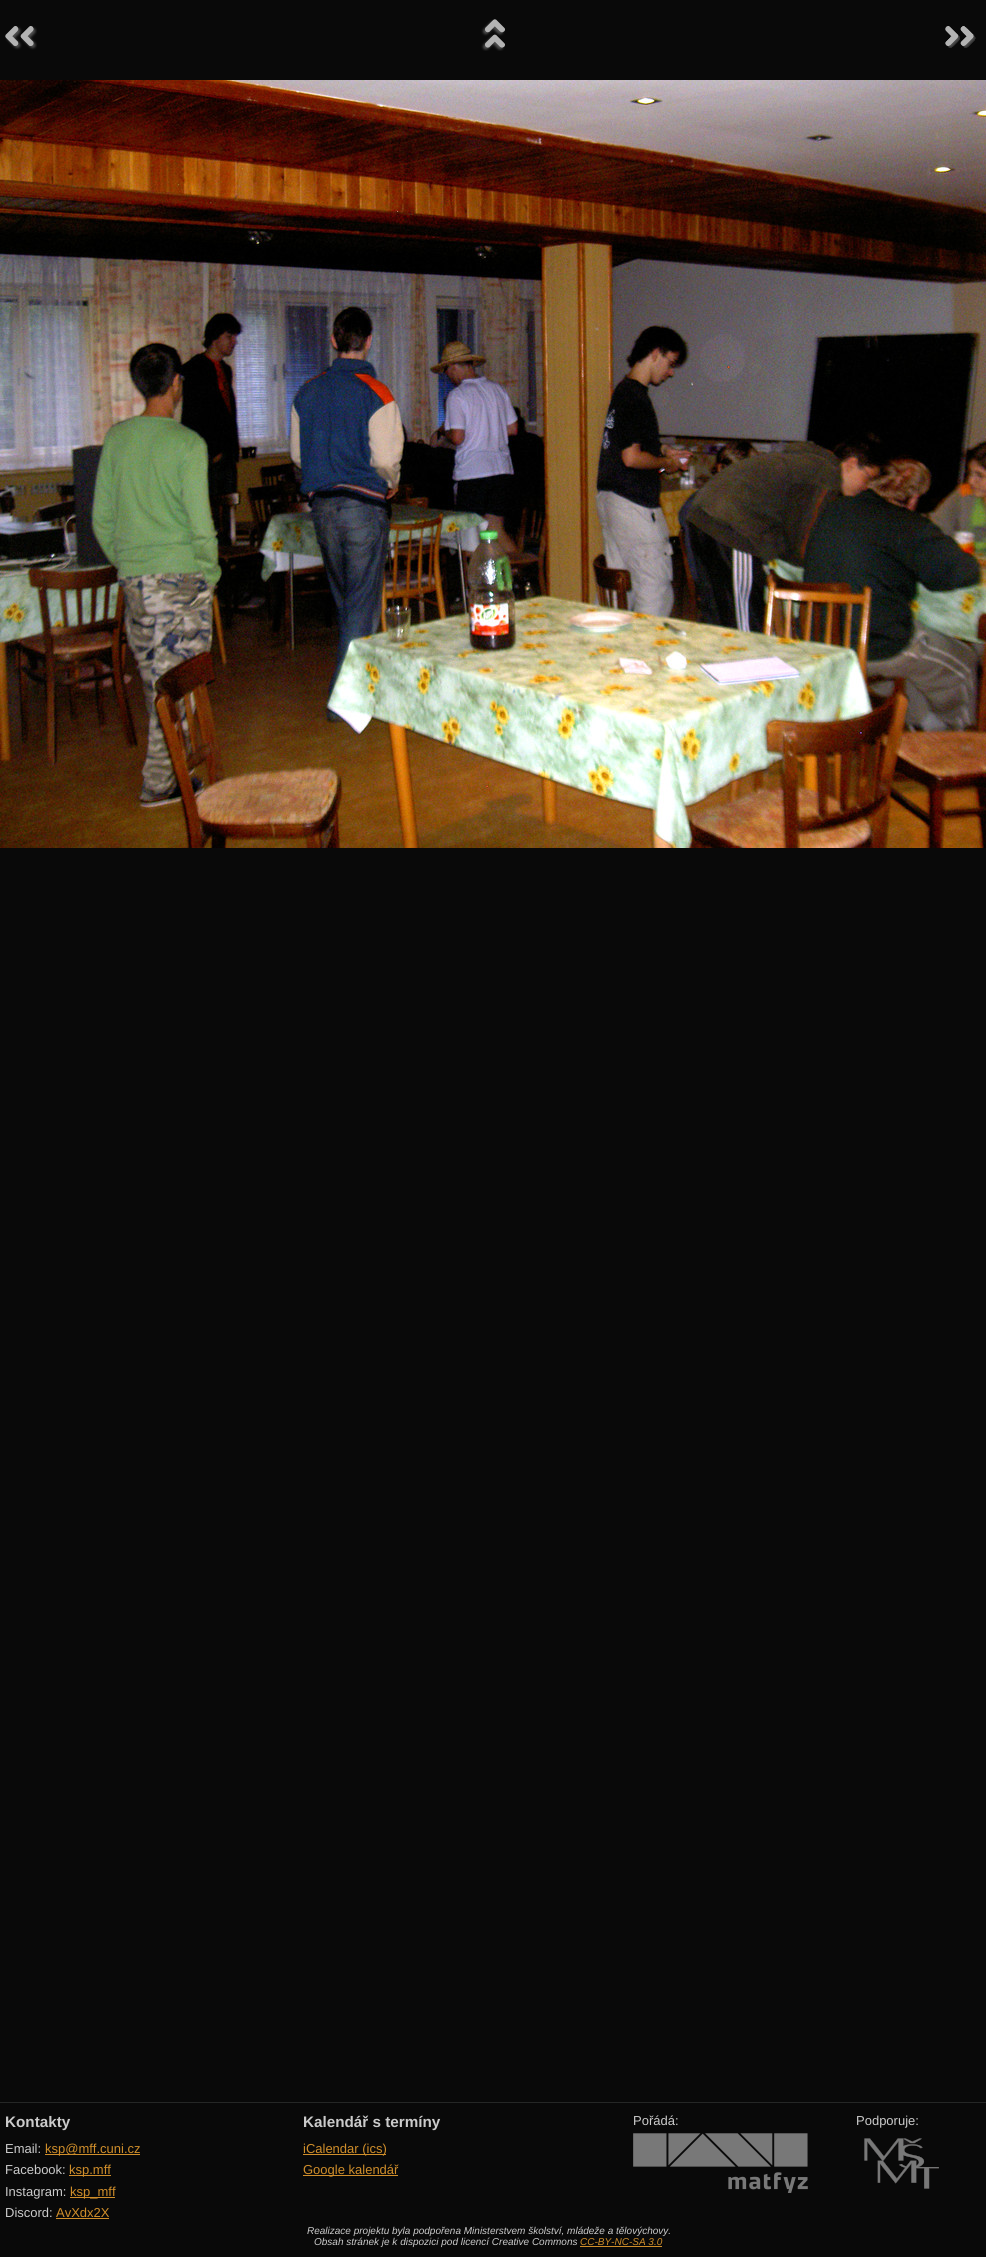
#include <cairo.h>
#include <math.h>
#include <stddef.h>


static void picture(cairo_t *cr, const char *path, double x, double y, double w, double h) {
    cairo_surface_t *image = cairo_image_surface_create_from_png(path);
    cairo_save(cr);
    cairo_set_source_surface(cr, image, x, y);
    cairo_rectangle(cr, x, y, w, h);
    cairo_fill(cr);
    cairo_restore(cr);
    cairo_surface_destroy(image);
}

int main(void) {
    cairo_surface_t *surface = cairo_image_surface_create(CAIRO_FORMAT_RGB24, 986, 2257);
    cairo_t *cr = cairo_create(surface);
    cairo_font_options_t *options = cairo_font_options_create();
    cairo_font_options_set_hint_metrics(options, CAIRO_HINT_METRICS_OFF);
    cairo_font_options_set_hint_style(options, CAIRO_HINT_STYLE_NONE);
    cairo_set_font_options(cr, options);
    cairo_set_miter_limit(cr, 4);
    cairo_set_source_rgb(cr, 0.039, 0.039, 0.039);
    cairo_paint(cr);
    picture(cr, "img1.png", 5, 26, 32, 24);
    picture(cr, "img2.png", 481, 19, 24, 32);
    picture(cr, "img3.png", 945, 26, 31, 22);
    picture(cr, "img4.png", 0, 80, 986, 768);
    cairo_set_source_rgb(cr, 0.145, 0.153, 0.149);
    cairo_rectangle(cr, 0, 2102, 986, 1);
    cairo_fill(cr);
    cairo_select_font_face(cr, "Liberation Sans", CAIRO_FONT_SLANT_NORMAL, CAIRO_FONT_WEIGHT_BOLD);
    cairo_set_font_size(cr, 15.25);
    cairo_set_source_rgb(cr, 0.796, 0.796, 0.796);
    cairo_move_to(cr, 5, 2127);
    cairo_show_text(cr, "Kontakty");
    cairo_select_font_face(cr, "Liberation Sans", CAIRO_FONT_SLANT_NORMAL, CAIRO_FONT_WEIGHT_NORMAL);
    cairo_set_font_size(cr, 13);
    cairo_move_to(cr, 5, 2153);
    cairo_show_text(cr, "Email:");
    cairo_set_source_rgb(cr, 0.816, 0.557, 0.165);
    cairo_rectangle(cr, 45, 2154, 95, 1);
    cairo_fill(cr);
    cairo_move_to(cr, 45, 2153);
    cairo_show_text(cr, "ksp@mff.cuni.cz");
    cairo_set_source_rgb(cr, 0.796, 0.796, 0.796);
    cairo_move_to(cr, 5, 2174);
    cairo_show_text(cr, "Facebook:");
    cairo_set_source_rgb(cr, 0.816, 0.557, 0.165);
    cairo_rectangle(cr, 69, 2175, 42, 1);
    cairo_fill(cr);
    cairo_move_to(cr, 69, 2174);
    cairo_show_text(cr, "ksp.mff");
    cairo_set_source_rgb(cr, 0.796, 0.796, 0.796);
    cairo_move_to(cr, 5, 2196);
    cairo_show_text(cr, "Instagram:");
    cairo_set_source_rgb(cr, 0.816, 0.557, 0.165);
    cairo_rectangle(cr, 70, 2197, 45, 1);
    cairo_fill(cr);
    cairo_move_to(cr, 70, 2196);
    cairo_show_text(cr, "ksp_mff");
    cairo_set_source_rgb(cr, 0.796, 0.796, 0.796);
    cairo_move_to(cr, 5, 2217);
    cairo_show_text(cr, "Discord:");
    cairo_set_source_rgb(cr, 0.816, 0.557, 0.165);
    cairo_move_to(cr, 56, 2217);
    cairo_show_text(cr, "AvXdx2X");
    cairo_rectangle(cr, 56, 2218, 53, 1);
    cairo_fill(cr);
    cairo_select_font_face(cr, "Liberation Sans", CAIRO_FONT_SLANT_NORMAL, CAIRO_FONT_WEIGHT_BOLD);
    cairo_set_font_size(cr, 15.25);
    cairo_set_source_rgb(cr, 0.796, 0.796, 0.796);
    cairo_move_to(cr, 303, 2127);
    cairo_show_text(cr, "Kalendář s termíny");
    cairo_set_source_rgb(cr, 0.816, 0.557, 0.165);
    cairo_rectangle(cr, 303, 2154, 83, 1);
    cairo_fill(cr);
    cairo_select_font_face(cr, "Liberation Sans", CAIRO_FONT_SLANT_NORMAL, CAIRO_FONT_WEIGHT_NORMAL);
    cairo_set_font_size(cr, 13);
    cairo_move_to(cr, 303, 2153);
    cairo_show_text(cr, "iCalendar (ics)");
    cairo_rectangle(cr, 303, 2175, 95, 1);
    cairo_fill(cr);
    cairo_move_to(cr, 303, 2174);
    cairo_show_text(cr, "Google kalendář");
    cairo_set_source_rgb(cr, 0.796, 0.796, 0.796);
    cairo_move_to(cr, 633, 2125);
    cairo_show_text(cr, "Pořádá:");
    picture(cr, "img5.png", 633, 2133, 175, 60);
    cairo_move_to(cr, 856, 2125);
    cairo_show_text(cr, "Podporuje:");
    picture(cr, "img6.png", 864, 2138, 75, 51);
    cairo_select_font_face(cr, "Liberation Sans", CAIRO_FONT_SLANT_ITALIC, CAIRO_FONT_WEIGHT_NORMAL);
    cairo_set_font_size(cr, 10);
    cairo_move_to(cr, 307, 2234);
    cairo_show_text(cr, "Realizace projektu byla podpořena Ministerstvem školství, mládeže a tělovýchovy.");
    cairo_move_to(cr, 314, 2245);
    cairo_show_text(cr, "Obsah stránek je k dispozici pod licencí Creative Commons");
    cairo_set_source_rgb(cr, 0.816, 0.557, 0.165);
    cairo_move_to(cr, 580, 2245);
    cairo_show_text(cr, "CC-BY-NC-SA 3.0");
    cairo_rectangle(cr, 580, 2246, 82, 1);
    cairo_fill(cr);
    cairo_surface_write_to_png(surface, "page.png");
    cairo_font_options_destroy(options);
    cairo_destroy(cr);
    cairo_surface_destroy(surface);
    return 0;
}
